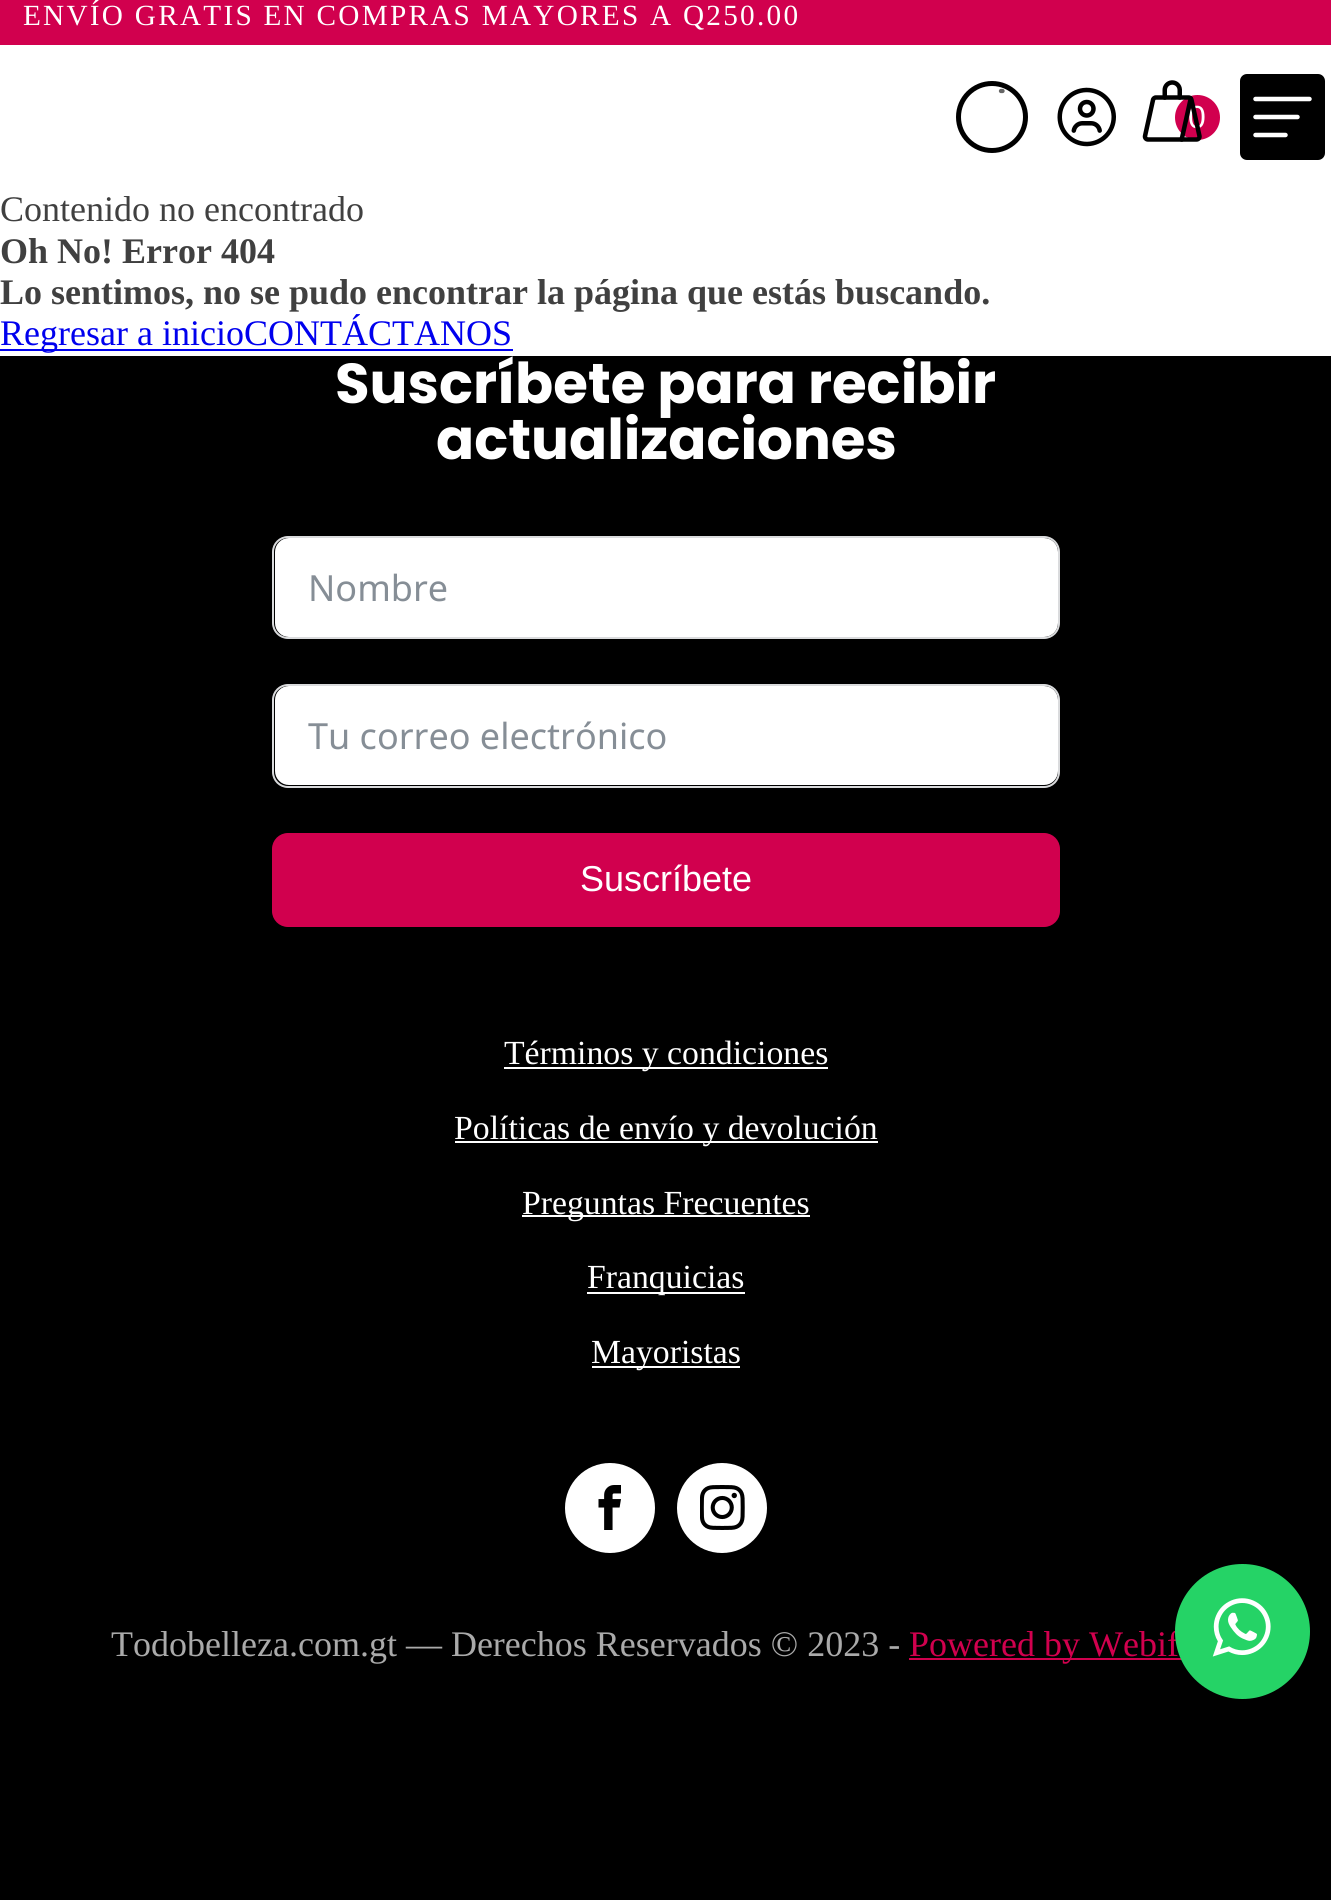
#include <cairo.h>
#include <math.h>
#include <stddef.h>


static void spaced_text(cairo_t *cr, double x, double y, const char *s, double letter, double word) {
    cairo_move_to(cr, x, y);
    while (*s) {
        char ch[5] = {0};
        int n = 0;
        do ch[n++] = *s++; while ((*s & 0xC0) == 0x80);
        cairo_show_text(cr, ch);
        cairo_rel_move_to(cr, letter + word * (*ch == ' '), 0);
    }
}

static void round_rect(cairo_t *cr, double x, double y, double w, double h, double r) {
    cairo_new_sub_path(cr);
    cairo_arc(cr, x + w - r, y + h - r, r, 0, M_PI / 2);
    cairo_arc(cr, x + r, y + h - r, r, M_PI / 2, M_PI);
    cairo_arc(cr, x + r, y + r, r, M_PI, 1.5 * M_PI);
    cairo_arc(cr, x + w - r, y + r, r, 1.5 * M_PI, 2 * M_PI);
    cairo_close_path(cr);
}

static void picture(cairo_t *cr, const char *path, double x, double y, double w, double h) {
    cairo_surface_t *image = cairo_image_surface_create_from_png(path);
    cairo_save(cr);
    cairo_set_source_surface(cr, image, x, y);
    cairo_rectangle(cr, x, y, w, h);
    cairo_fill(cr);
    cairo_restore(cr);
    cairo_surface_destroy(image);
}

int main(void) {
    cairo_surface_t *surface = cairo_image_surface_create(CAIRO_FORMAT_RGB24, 1331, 1900);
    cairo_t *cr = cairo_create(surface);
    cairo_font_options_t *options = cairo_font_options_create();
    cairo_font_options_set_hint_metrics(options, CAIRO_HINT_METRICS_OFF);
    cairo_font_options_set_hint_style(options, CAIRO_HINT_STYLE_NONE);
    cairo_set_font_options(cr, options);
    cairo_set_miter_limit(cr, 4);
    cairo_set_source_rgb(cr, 1, 1, 1);
    cairo_paint(cr);
    cairo_set_source_rgb(cr, 0.82, 0, 0.306);
    cairo_rectangle(cr, 0, 0, 1331, 45);
    cairo_fill(cr);
    cairo_select_font_face(cr, "Liberation Serif", CAIRO_FONT_SLANT_NORMAL, CAIRO_FONT_WEIGHT_NORMAL);
    cairo_set_font_size(cr, 29.25);
    cairo_set_source_rgb(cr, 1, 1, 1);
    spaced_text(cr, 23, 25, "ENVÍO GRATIS EN COMPRAS MAYORES A Q250.00", 2.25, 0);
    cairo_new_path(cr);
    cairo_arc(cr, 992, 117, 33.5, 0, 2 * M_PI);
    cairo_set_source_rgb(cr, 0, 0, 0);
    cairo_set_line_width(cr, 5);
    cairo_stroke(cr);
    cairo_new_path(cr);
    cairo_move_to(cr, 1001, 91);
    cairo_line_to(cr, 1002.5, 91);
    cairo_set_source_rgb(cr, 0.4, 0.4, 0.4);
    cairo_set_line_width(cr, 4.3);
    cairo_set_line_cap(cr, CAIRO_LINE_CAP_ROUND);
    cairo_stroke(cr);
    picture(cr, "img1.png", 1057, 87, 59, 60);
    cairo_set_source_rgb(cr, 0.82, 0, 0.306);
    cairo_arc(cr, 1197.5, 117.5, 22.5, 0, 2 * M_PI);
    cairo_fill(cr);
    cairo_select_font_face(cr, "Liberation Sans", CAIRO_FONT_SLANT_NORMAL, CAIRO_FONT_WEIGHT_NORMAL);
    cairo_set_font_size(cr, 32);
    cairo_set_source_rgb(cr, 1, 1, 1);
    cairo_move_to(cr, 1188, 128);
    cairo_show_text(cr, "0");
    picture(cr, "img2.png", 1142, 80, 60, 62);
    cairo_set_source_rgb(cr, 0, 0, 0);
    round_rect(cr, 1240, 74, 85, 86, 7);
    cairo_fill(cr);
    picture(cr, "img3.png", 1253, 96, 59, 42);
    cairo_select_font_face(cr, "Liberation Serif", CAIRO_FONT_SLANT_NORMAL, CAIRO_FONT_WEIGHT_NORMAL);
    cairo_set_font_size(cr, 36);
    cairo_set_source_rgb(cr, 0.251, 0.251, 0.251);
    cairo_move_to(cr, 0, 221);
    cairo_show_text(cr, "Contenido no encontrado");
    cairo_select_font_face(cr, "Liberation Serif", CAIRO_FONT_SLANT_NORMAL, CAIRO_FONT_WEIGHT_BOLD);
    cairo_move_to(cr, 0, 263);
    cairo_show_text(cr, "Oh No! Error 404");
    cairo_move_to(cr, 0, 304);
    cairo_show_text(cr, "Lo sentimos, no se pudo encontrar la página que estás buscando.");
    cairo_set_source_rgb(cr, 0, 0, 0.933);
    cairo_rectangle(cr, 0, 349, 513, 2);
    cairo_fill(cr);
    cairo_select_font_face(cr, "Liberation Serif", CAIRO_FONT_SLANT_NORMAL, CAIRO_FONT_WEIGHT_NORMAL);
    cairo_move_to(cr, 0, 345);
    cairo_show_text(cr, "Regresar a inicioCONTÁCTANOS");
    cairo_set_source_rgb(cr, 0, 0, 0);
    cairo_rectangle(cr, 0, 356, 1331, 1544);
    cairo_fill(cr);
    cairo_select_font_face(cr, "Poppins", CAIRO_FONT_SLANT_NORMAL, CAIRO_FONT_WEIGHT_BOLD);
    cairo_set_font_size(cr, 56.25);
    cairo_set_source_rgb(cr, 1, 1, 1);
    cairo_move_to(cr, 335, 403);
    cairo_show_text(cr, "Suscríbete para recibir");
    cairo_move_to(cr, 436, 459);
    cairo_show_text(cr, "actualizaciones");
    round_rect(cr, 275, 538, 783, 99, 14);
    cairo_fill(cr);
    round_rect(cr, 273, 537, 786, 101, 15);
    cairo_set_source_rgb(cr, 0.855, 0.859, 0.867);
    cairo_set_line_width(cr, 2);
    cairo_set_line_cap(cr, CAIRO_LINE_CAP_BUTT);
    cairo_stroke(cr);
    cairo_select_font_face(cr, "Noto Sans", CAIRO_FONT_SLANT_NORMAL, CAIRO_FONT_WEIGHT_NORMAL);
    cairo_set_font_size(cr, 36);
    cairo_set_source_rgb(cr, 0.525, 0.557, 0.588);
    cairo_move_to(cr, 308, 601);
    cairo_show_text(cr, "Nombre");
    cairo_set_source_rgb(cr, 1, 1, 1);
    round_rect(cr, 275, 686, 783, 99, 14);
    cairo_fill(cr);
    round_rect(cr, 273, 685, 786, 102, 15);
    cairo_set_source_rgb(cr, 0.855, 0.859, 0.867);
    cairo_stroke(cr);
    cairo_set_source_rgb(cr, 0.525, 0.557, 0.588);
    cairo_move_to(cr, 308, 749);
    cairo_show_text(cr, "Tu correo electrónico");
    cairo_set_source_rgb(cr, 0.82, 0, 0.306);
    round_rect(cr, 273, 834, 786, 92, 15);
    cairo_fill_preserve(cr);
    cairo_stroke(cr);
    cairo_select_font_face(cr, "Liberation Sans", CAIRO_FONT_SLANT_NORMAL, CAIRO_FONT_WEIGHT_NORMAL);
    cairo_set_source_rgb(cr, 1, 1, 1);
    cairo_move_to(cr, 580, 891);
    cairo_show_text(cr, "Suscríbete");
    cairo_rectangle(cr, 504, 1067, 324, 2);
    cairo_fill(cr);
    cairo_select_font_face(cr, "Liberation Serif", CAIRO_FONT_SLANT_NORMAL, CAIRO_FONT_WEIGHT_NORMAL);
    cairo_set_font_size(cr, 33.75);
    cairo_move_to(cr, 504, 1064);
    cairo_show_text(cr, "Términos y condiciones");
    cairo_rectangle(cr, 455, 1141, 423, 2);
    cairo_fill(cr);
    cairo_move_to(cr, 454, 1139);
    cairo_show_text(cr, "Políticas de envío y devolución");
    cairo_rectangle(cr, 522, 1215, 288, 2);
    cairo_fill(cr);
    cairo_move_to(cr, 522, 1214);
    cairo_show_text(cr, "Preguntas Frecuentes");
    cairo_rectangle(cr, 587, 1292, 158, 2);
    cairo_fill(cr);
    cairo_move_to(cr, 587, 1288);
    cairo_show_text(cr, "Franquicias");
    cairo_rectangle(cr, 592, 1366, 148, 2);
    cairo_fill(cr);
    cairo_move_to(cr, 591, 1363);
    cairo_show_text(cr, "Mayoristas");
    cairo_new_path(cr);
    cairo_arc(cr, 610, 1508, 45, 0, 2 * M_PI);
    cairo_fill(cr);
    picture(cr, "img4.png", 598, 1485, 23, 45);
    cairo_arc(cr, 722, 1508, 45, 0, 2 * M_PI);
    cairo_fill(cr);
    picture(cr, "img5.png", 700, 1485, 45, 45);
    cairo_set_font_size(cr, 36);
    cairo_set_source_rgb(cr, 0.667, 0.667, 0.667);
    cairo_move_to(cr, 111, 1656);
    cairo_show_text(cr, "Todobelleza.com.gt — Derechos Reservados © 2023 -");
    cairo_set_source_rgb(cr, 0.82, 0, 0.306);
    cairo_rectangle(cr, 909, 1658, 273, 2);
    cairo_fill(cr);
    cairo_move_to(cr, 909, 1656);
    cairo_show_text(cr, "Powered by Webif");
    cairo_set_source_rgb(cr, 0.145, 0.827, 0.4);
    cairo_new_path(cr);
    cairo_arc(cr, 1242.5, 1631.5, 67.5, 0, 2 * M_PI);
    cairo_fill(cr);
    picture(cr, "img6.png", 1212, 1598, 59, 59);
    cairo_surface_write_to_png(surface, "page.png");
    cairo_font_options_destroy(options);
    cairo_destroy(cr);
    cairo_surface_destroy(surface);
    return 0;
}
